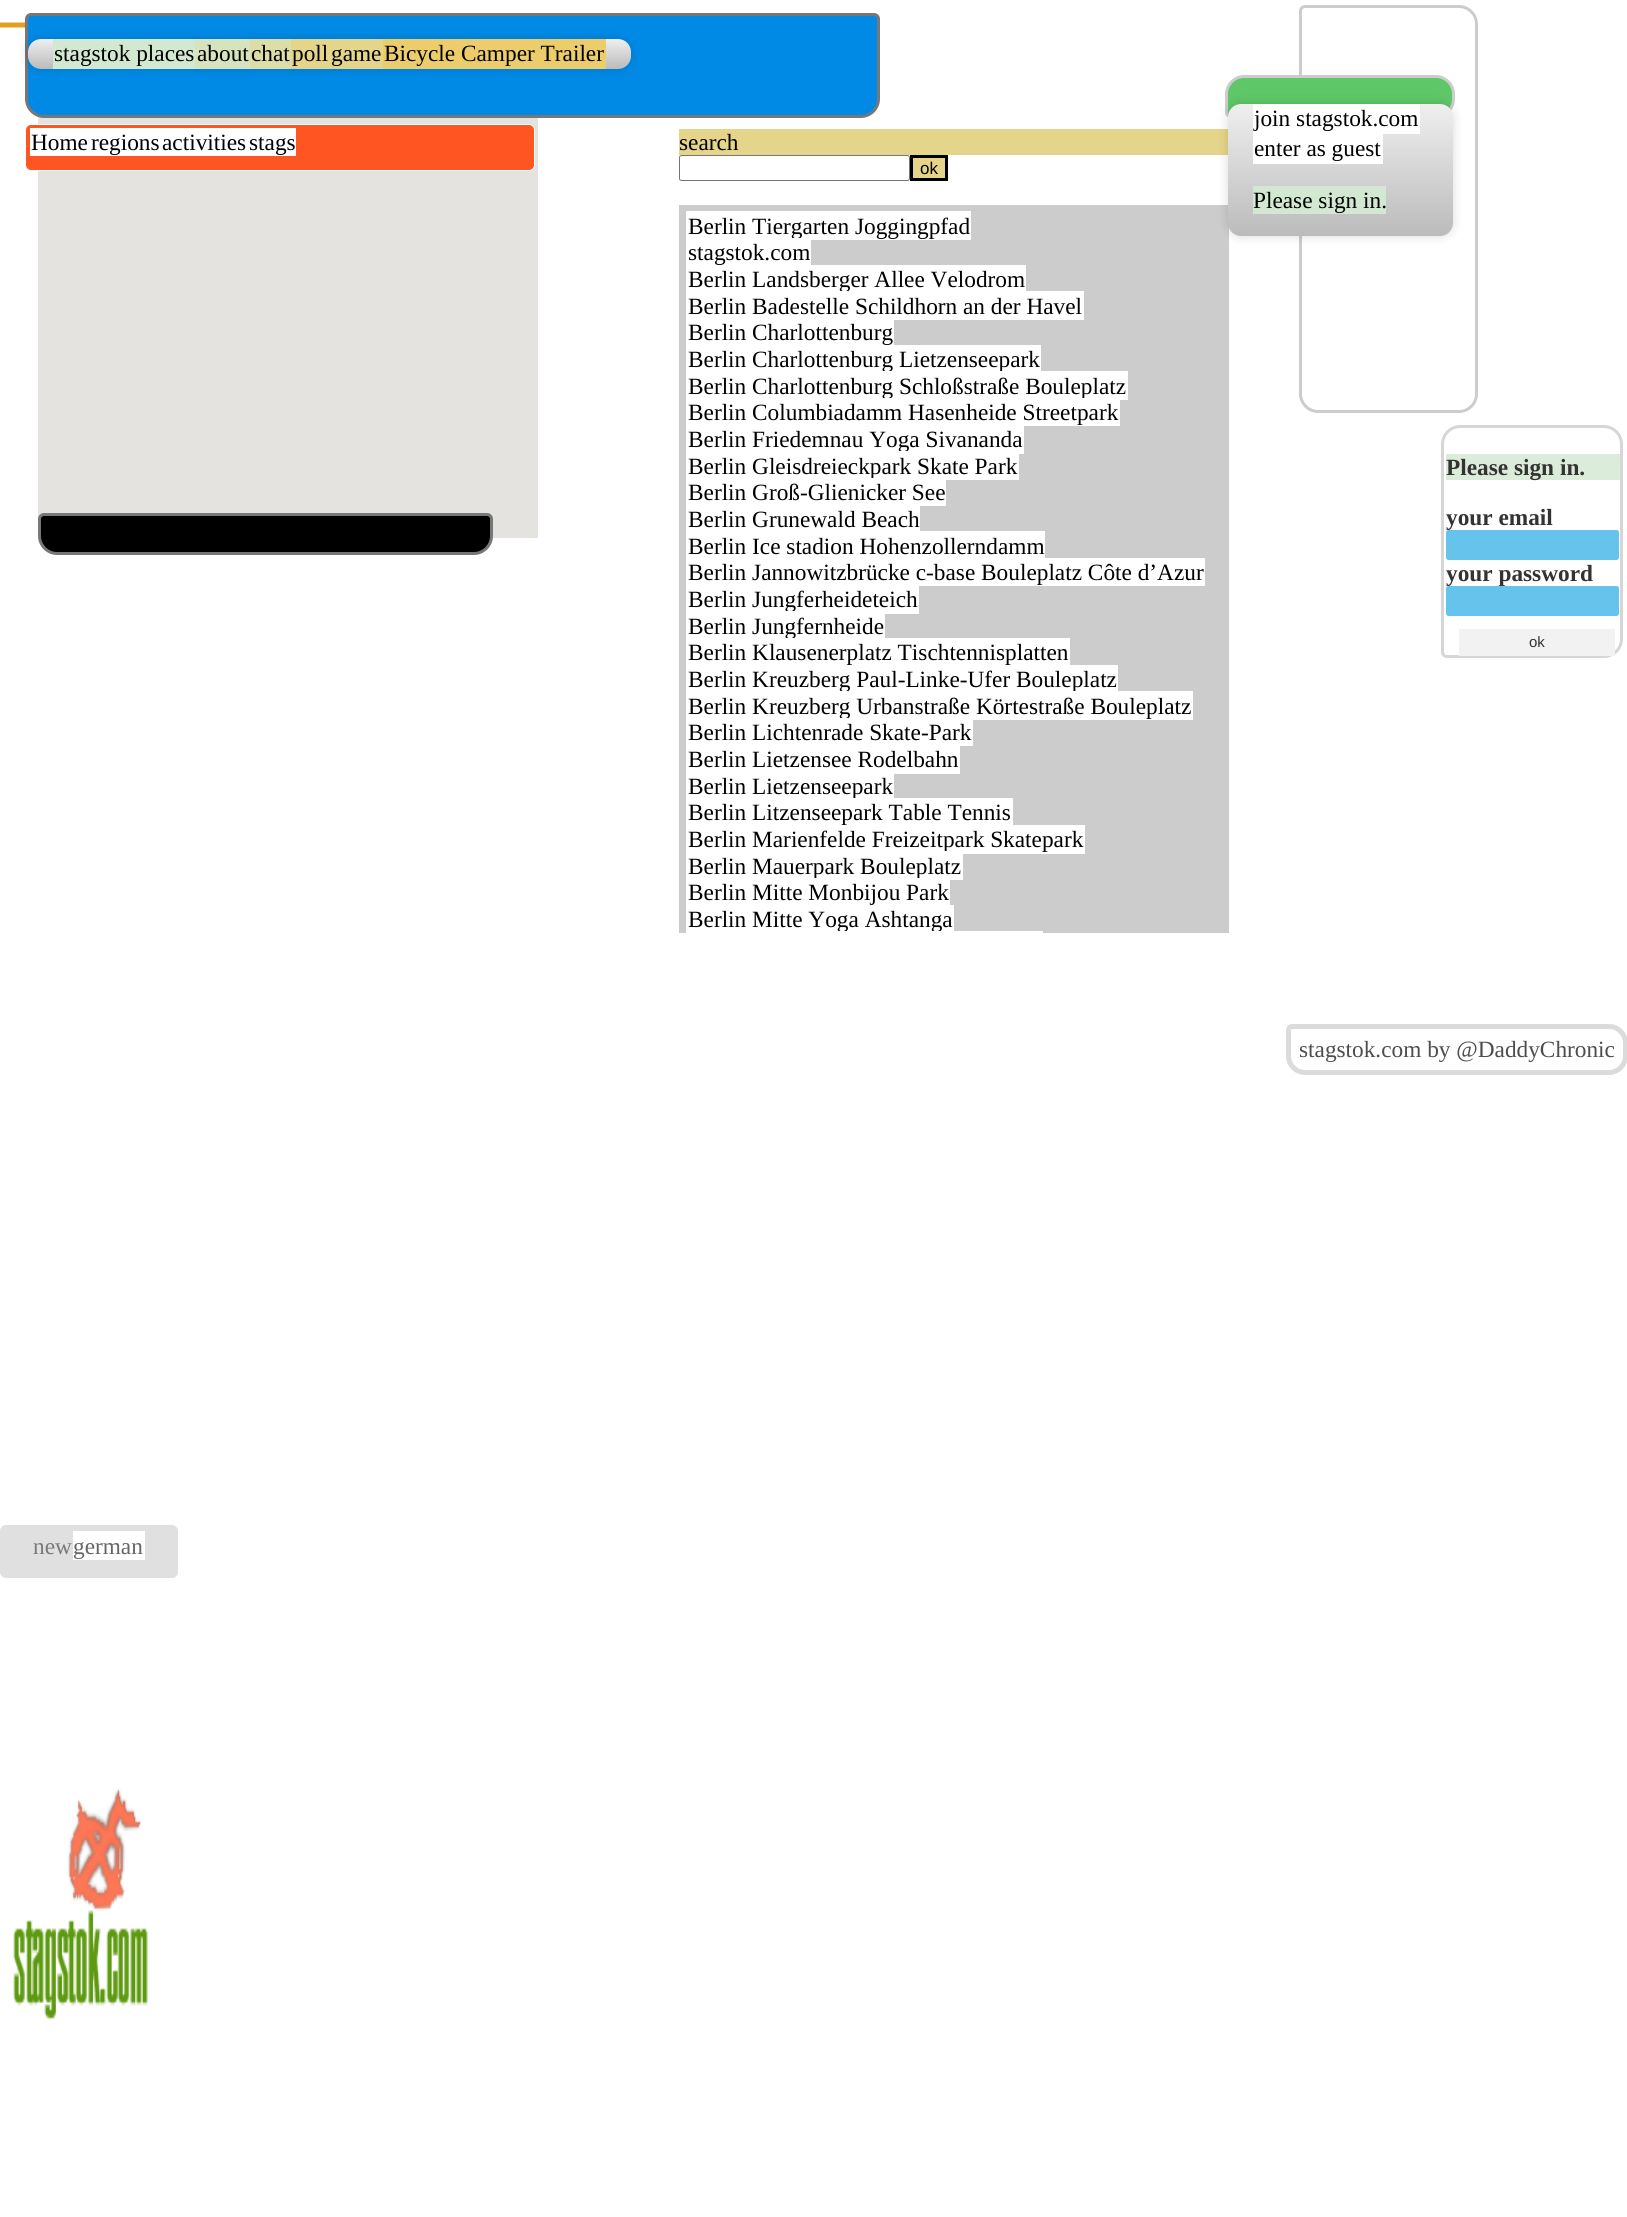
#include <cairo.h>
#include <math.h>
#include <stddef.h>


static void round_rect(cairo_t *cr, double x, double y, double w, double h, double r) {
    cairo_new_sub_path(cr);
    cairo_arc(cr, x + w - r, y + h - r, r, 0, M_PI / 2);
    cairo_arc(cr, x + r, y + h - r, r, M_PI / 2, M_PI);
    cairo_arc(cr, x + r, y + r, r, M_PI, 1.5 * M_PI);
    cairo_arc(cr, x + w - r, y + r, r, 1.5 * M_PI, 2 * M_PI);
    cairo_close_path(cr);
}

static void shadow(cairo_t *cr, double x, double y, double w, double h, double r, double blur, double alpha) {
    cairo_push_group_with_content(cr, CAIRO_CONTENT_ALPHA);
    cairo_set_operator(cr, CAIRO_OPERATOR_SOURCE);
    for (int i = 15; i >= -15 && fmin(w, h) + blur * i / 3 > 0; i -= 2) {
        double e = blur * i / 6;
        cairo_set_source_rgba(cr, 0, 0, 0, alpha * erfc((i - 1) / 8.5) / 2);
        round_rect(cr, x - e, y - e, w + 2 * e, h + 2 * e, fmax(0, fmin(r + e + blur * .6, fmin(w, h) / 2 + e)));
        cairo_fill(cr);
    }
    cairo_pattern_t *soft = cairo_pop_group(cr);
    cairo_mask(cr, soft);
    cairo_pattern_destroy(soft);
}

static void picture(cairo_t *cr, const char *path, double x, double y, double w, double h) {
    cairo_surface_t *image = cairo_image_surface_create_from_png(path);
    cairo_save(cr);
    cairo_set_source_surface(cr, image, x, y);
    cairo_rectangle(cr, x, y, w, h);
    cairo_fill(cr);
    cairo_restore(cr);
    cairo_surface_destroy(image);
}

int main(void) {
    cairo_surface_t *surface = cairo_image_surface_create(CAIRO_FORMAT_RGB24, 1627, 2217);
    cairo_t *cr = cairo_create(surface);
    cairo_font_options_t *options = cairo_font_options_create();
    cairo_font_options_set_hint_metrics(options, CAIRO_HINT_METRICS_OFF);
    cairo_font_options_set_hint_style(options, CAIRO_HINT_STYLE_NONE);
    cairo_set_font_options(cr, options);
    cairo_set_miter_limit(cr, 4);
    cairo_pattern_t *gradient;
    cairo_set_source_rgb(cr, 1, 1, 1);
    cairo_paint(cr);
    picture(cr, "img1.png", 0, 22, 25, 6);
    cairo_set_source_rgb(cr, 0.898, 0.89, 0.875);
    cairo_rectangle(cr, 38, 117, 500, 421);
    cairo_fill(cr);
    cairo_set_source_rgb(cr, 0, 0.541, 0.902);
    cairo_new_path(cr);
    cairo_move_to(cr, 31, 14.5);
    cairo_line_to(cr, 874, 14.5);
    cairo_curve_to(cr, 876.5, 14.5, 878.5, 16.5, 878.5, 19);
    cairo_line_to(cr, 878.5, 99);
    cairo_curve_to(cr, 878.5, 108.5, 870.5, 116.5, 861, 116.5);
    cairo_line_to(cr, 44, 116.5);
    cairo_curve_to(cr, 34.5, 116.5, 26.5, 108.5, 26.5, 99);
    cairo_line_to(cr, 26.5, 19);
    cairo_curve_to(cr, 26.5, 16.5, 28.5, 14.5, 31, 14.5);
    cairo_close_path(cr);
    cairo_fill_preserve(cr);
    cairo_set_source_rgb(cr, 0.467, 0.467, 0.467);
    cairo_set_line_width(cr, 3);
    cairo_stroke(cr);
    cairo_set_source_rgb(cr, 0, 0, 0);
    shadow(cr, 28, 39, 603, 30, 13, 5.5, 0.15);
    gradient = cairo_pattern_create_linear(329, 39, 329, 69);
    cairo_pattern_add_color_stop_rgba(gradient, 0, 0.937, 0.937, 0.937, 1);
    cairo_pattern_add_color_stop_rgba(gradient, 1, 0.733, 0.733, 0.733, 1);
    cairo_set_source(cr, gradient);
    cairo_pattern_destroy(gradient);
    round_rect(cr, 28, 39, 603, 30, 13);
    cairo_fill(cr);
    cairo_set_source_rgb(cr, 0.824, 0.91, 0.82);
    cairo_rectangle(cr, 53, 39, 142, 30);
    cairo_fill(cr);
    cairo_select_font_face(cr, "Liberation Serif", CAIRO_FONT_SLANT_NORMAL, CAIRO_FONT_WEIGHT_NORMAL);
    cairo_set_font_size(cr, 23.3);
    cairo_set_source_rgb(cr, 0, 0, 0);
    cairo_move_to(cr, 54, 61);
    cairo_show_text(cr, "stagstok places");
    cairo_set_source_rgb(cr, 0.843, 0.89, 0.741);
    cairo_rectangle(cr, 195, 39, 55, 30);
    cairo_fill(cr);
    cairo_set_source_rgb(cr, 0, 0, 0);
    cairo_move_to(cr, 197, 61);
    cairo_show_text(cr, "about");
    cairo_set_source_rgb(cr, 0.867, 0.867, 0.659);
    cairo_rectangle(cr, 250, 39, 41, 30);
    cairo_fill(cr);
    cairo_set_source_rgb(cr, 0, 0, 0);
    cairo_move_to(cr, 251, 61);
    cairo_show_text(cr, "chat");
    cairo_set_source_rgb(cr, 0.898, 0.835, 0.541);
    cairo_rectangle(cr, 291, 39, 92, 30);
    cairo_fill(cr);
    cairo_set_source_rgb(cr, 0, 0, 0);
    cairo_move_to(cr, 292, 61);
    cairo_show_text(cr, "poll");
    cairo_move_to(cr, 331, 61);
    cairo_show_text(cr, "game");
    cairo_set_source_rgb(cr, 0.929, 0.804, 0.42);
    cairo_rectangle(cr, 383, 39, 223, 30);
    cairo_fill(cr);
    cairo_set_source_rgb(cr, 0, 0, 0);
    cairo_move_to(cr, 384, 61);
    cairo_show_text(cr, "Bicycle Camper Trailer");
    cairo_new_path(cr);
    cairo_move_to(cr, 1305, 6.5);
    cairo_line_to(cr, 1459, 6.5);
    cairo_curve_to(cr, 1468.5, 6.5, 1476.5, 14.5, 1476.5, 24);
    cairo_line_to(cr, 1476.5, 394);
    cairo_curve_to(cr, 1476.5, 403.5, 1468.5, 411.5, 1459, 411.5);
    cairo_line_to(cr, 1318, 411.5);
    cairo_curve_to(cr, 1308.5, 411.5, 1300.5, 403.5, 1300.5, 394);
    cairo_line_to(cr, 1300.5, 11);
    cairo_curve_to(cr, 1300.5, 8.5, 1302.5, 6.5, 1305, 6.5);
    cairo_close_path(cr);
    cairo_set_source_rgb(cr, 0.8, 0.8, 0.8);
    cairo_stroke(cr);
    cairo_set_source_rgb(cr, 0.898, 0.835, 0.541);
    cairo_rectangle(cr, 679, 129, 549, 26);
    cairo_fill(cr);
    cairo_set_source_rgb(cr, 0, 0, 0);
    cairo_move_to(cr, 679, 150);
    cairo_show_text(cr, "search");
    round_rect(cr, 679.5, 155.5, 230, 25, 2);
    cairo_set_source_rgb(cr, 0.463, 0.463, 0.463);
    cairo_set_line_width(cr, 1);
    cairo_stroke(cr);
    cairo_set_source_rgb(cr, 0.898, 0.835, 0.541);
    cairo_rectangle(cr, 911.5, 156.5, 35, 23);
    cairo_fill_preserve(cr);
    cairo_set_source_rgb(cr, 0, 0, 0);
    cairo_set_line_width(cr, 3);
    cairo_stroke(cr);
    cairo_select_font_face(cr, "Liberation Sans", CAIRO_FONT_SLANT_NORMAL, CAIRO_FONT_WEIGHT_NORMAL);
    cairo_set_font_size(cr, 17);
    cairo_move_to(cr, 920, 174);
    cairo_show_text(cr, "ok");
    cairo_set_source_rgb(cr, 0.8, 0.8, 0.8);
    cairo_rectangle(cr, 679, 205, 550, 728);
    cairo_fill(cr);
    cairo_set_source_rgb(cr, 1, 1, 1);
    cairo_rectangle(cr, 686, 211, 285, 29);
    cairo_fill(cr);
    cairo_select_font_face(cr, "Liberation Serif", CAIRO_FONT_SLANT_NORMAL, CAIRO_FONT_WEIGHT_NORMAL);
    cairo_set_font_size(cr, 23.3);
    cairo_set_source_rgb(cr, 0, 0, 0);
    cairo_move_to(cr, 688, 234);
    cairo_show_text(cr, "Berlin Tiergarten Joggingpfad");
    cairo_set_source_rgb(cr, 1, 1, 1);
    cairo_rectangle(cr, 686, 238, 125, 27);
    cairo_fill(cr);
    cairo_set_source_rgb(cr, 0, 0, 0);
    cairo_move_to(cr, 688, 260);
    cairo_show_text(cr, "stagstok.com");
    cairo_set_source_rgb(cr, 1, 1, 1);
    cairo_rectangle(cr, 686, 265, 340, 26);
    cairo_fill(cr);
    cairo_set_source_rgb(cr, 0, 0, 0);
    cairo_move_to(cr, 688, 287);
    cairo_show_text(cr, "Berlin Landsberger Allee Velodrom");
    cairo_set_source_rgb(cr, 1, 1, 1);
    cairo_rectangle(cr, 686, 291, 398, 29);
    cairo_fill(cr);
    cairo_set_source_rgb(cr, 0, 0, 0);
    cairo_move_to(cr, 688, 314);
    cairo_show_text(cr, "Berlin Badestelle Schildhorn an der Havel");
    cairo_set_source_rgb(cr, 1, 1, 1);
    cairo_rectangle(cr, 686, 320, 208, 25);
    cairo_fill(cr);
    cairo_set_source_rgb(cr, 0, 0, 0);
    cairo_move_to(cr, 688, 340);
    cairo_show_text(cr, "Berlin Charlottenburg");
    cairo_set_source_rgb(cr, 1, 1, 1);
    cairo_rectangle(cr, 686, 345, 355, 26);
    cairo_fill(cr);
    cairo_set_source_rgb(cr, 0, 0, 0);
    cairo_move_to(cr, 688, 367);
    cairo_show_text(cr, "Berlin Charlottenburg Lietzenseepark");
    cairo_set_source_rgb(cr, 1, 1, 1);
    cairo_rectangle(cr, 686, 371, 442, 29);
    cairo_fill(cr);
    cairo_set_source_rgb(cr, 0, 0, 0);
    cairo_move_to(cr, 688, 394);
    cairo_show_text(cr, "Berlin Charlottenburg Schloßstraße Bouleplatz");
    cairo_set_source_rgb(cr, 1, 1, 1);
    cairo_rectangle(cr, 686, 398, 434, 28);
    cairo_fill(cr);
    cairo_set_source_rgb(cr, 0, 0, 0);
    cairo_move_to(cr, 688, 420);
    cairo_show_text(cr, "Berlin Columbiadamm Hasenheide Streetpark");
    cairo_set_source_rgb(cr, 1, 1, 1);
    cairo_rectangle(cr, 686, 426, 338, 28);
    cairo_fill(cr);
    cairo_set_source_rgb(cr, 0, 0, 0);
    cairo_move_to(cr, 688, 447);
    cairo_show_text(cr, "Berlin Friedemnau Yoga Sivananda");
    cairo_set_source_rgb(cr, 1, 1, 1);
    cairo_rectangle(cr, 686, 451, 333, 29);
    cairo_fill(cr);
    cairo_set_source_rgb(cr, 0, 0, 0);
    cairo_move_to(cr, 688, 474);
    cairo_show_text(cr, "Berlin Gleisdreieckpark Skate Park");
    cairo_set_source_rgb(cr, 1, 1, 1);
    cairo_rectangle(cr, 686, 478, 260, 28);
    cairo_fill(cr);
    cairo_set_source_rgb(cr, 0, 0, 0);
    cairo_move_to(cr, 688, 500);
    cairo_show_text(cr, "Berlin Groß-Glienicker See");
    cairo_set_source_rgb(cr, 1, 1, 1);
    cairo_rectangle(cr, 686, 506, 234, 25);
    cairo_fill(cr);
    cairo_set_source_rgb(cr, 0, 0, 0);
    cairo_move_to(cr, 688, 527);
    cairo_show_text(cr, "Berlin Grunewald Beach");
    cairo_set_source_rgb(cr, 1, 1, 1);
    cairo_rectangle(cr, 686, 531, 359, 27);
    cairo_fill(cr);
    cairo_set_source_rgb(cr, 0, 0, 0);
    cairo_move_to(cr, 688, 554);
    cairo_show_text(cr, "Berlin Ice stadion Hohenzollerndamm");
    cairo_set_source_rgb(cr, 1, 1, 1);
    cairo_rectangle(cr, 686, 558, 519, 28);
    cairo_fill(cr);
    cairo_set_source_rgb(cr, 0, 0, 0);
    cairo_move_to(cr, 688, 580);
    cairo_show_text(cr, "Berlin Jannowitzbrücke c-base Bouleplatz Côte d’Azur");
    cairo_set_source_rgb(cr, 1, 1, 1);
    cairo_rectangle(cr, 686, 586, 233, 28);
    cairo_fill(cr);
    cairo_set_source_rgb(cr, 0, 0, 0);
    cairo_move_to(cr, 688, 607);
    cairo_show_text(cr, "Berlin Jungferheideteich");
    cairo_set_source_rgb(cr, 1, 1, 1);
    cairo_rectangle(cr, 686, 611, 199, 27);
    cairo_fill(cr);
    cairo_set_source_rgb(cr, 0, 0, 0);
    cairo_move_to(cr, 688, 634);
    cairo_show_text(cr, "Berlin Jungfernheide");
    cairo_set_source_rgb(cr, 1, 1, 1);
    cairo_rectangle(cr, 686, 638, 384, 27);
    cairo_fill(cr);
    cairo_set_source_rgb(cr, 0, 0, 0);
    cairo_move_to(cr, 688, 660);
    cairo_show_text(cr, "Berlin Klausenerplatz Tischtennisplatten");
    cairo_set_source_rgb(cr, 1, 1, 1);
    cairo_rectangle(cr, 686, 665, 432, 26);
    cairo_fill(cr);
    cairo_set_source_rgb(cr, 0, 0, 0);
    cairo_move_to(cr, 688, 687);
    cairo_show_text(cr, "Berlin Kreuzberg Paul-Linke-Ufer Bouleplatz");
    cairo_set_source_rgb(cr, 1, 1, 1);
    cairo_rectangle(cr, 686, 691, 507, 29);
    cairo_fill(cr);
    cairo_set_source_rgb(cr, 0, 0, 0);
    cairo_move_to(cr, 688, 714);
    cairo_show_text(cr, "Berlin Kreuzberg Urbanstraße Körtestraße Bouleplatz");
    cairo_set_source_rgb(cr, 1, 1, 1);
    cairo_rectangle(cr, 686, 718, 287, 28);
    cairo_fill(cr);
    cairo_set_source_rgb(cr, 0, 0, 0);
    cairo_move_to(cr, 688, 740);
    cairo_show_text(cr, "Berlin Lichtenrade Skate-Park");
    cairo_set_source_rgb(cr, 1, 1, 1);
    cairo_rectangle(cr, 686, 746, 274, 28);
    cairo_fill(cr);
    cairo_set_source_rgb(cr, 0, 0, 0);
    cairo_move_to(cr, 688, 767);
    cairo_show_text(cr, "Berlin Lietzensee Rodelbahn");
    cairo_set_source_rgb(cr, 1, 1, 1);
    cairo_rectangle(cr, 686, 774, 208, 24);
    cairo_fill(cr);
    cairo_set_source_rgb(cr, 0, 0, 0);
    cairo_move_to(cr, 688, 794);
    cairo_show_text(cr, "Berlin Lietzenseepark");
    cairo_set_source_rgb(cr, 1, 1, 1);
    cairo_rectangle(cr, 686, 798, 327, 27);
    cairo_fill(cr);
    cairo_set_source_rgb(cr, 0, 0, 0);
    cairo_move_to(cr, 688, 820);
    cairo_show_text(cr, "Berlin Litzenseepark Table Tennis");
    cairo_set_source_rgb(cr, 1, 1, 1);
    cairo_rectangle(cr, 686, 825, 399, 29);
    cairo_fill(cr);
    cairo_set_source_rgb(cr, 0, 0, 0);
    cairo_move_to(cr, 688, 847);
    cairo_show_text(cr, "Berlin Marienfelde Freizeitpark Skatepark");
    cairo_set_source_rgb(cr, 1, 1, 1);
    cairo_rectangle(cr, 686, 851, 277, 29);
    cairo_fill(cr);
    cairo_set_source_rgb(cr, 0, 0, 0);
    cairo_move_to(cr, 688, 874);
    cairo_show_text(cr, "Berlin Mauerpark Bouleplatz");
    cairo_set_source_rgb(cr, 1, 1, 1);
    cairo_rectangle(cr, 686, 878, 264, 27);
    cairo_fill(cr);
    cairo_set_source_rgb(cr, 0, 0, 0);
    cairo_move_to(cr, 688, 900);
    cairo_show_text(cr, "Berlin Mitte Monbijou Park");
    cairo_set_source_rgb(cr, 1, 1, 1);
    cairo_rectangle(cr, 686, 905, 268, 26);
    cairo_fill(cr);
    cairo_set_source_rgb(cr, 0, 0, 0);
    cairo_move_to(cr, 688, 927);
    cairo_show_text(cr, "Berlin Mitte Yoga Ashtanga");
    cairo_set_source_rgb(cr, 1, 1, 1);
    cairo_rectangle(cr, 686, 931, 357, 2);
    cairo_fill(cr);
    cairo_set_source_rgb(cr, 0.369, 0.78, 0.408);
    cairo_new_path(cr);
    cairo_move_to(cr, 1244, 76.5);
    cairo_line_to(cr, 1436, 76.5);
    cairo_curve_to(cr, 1445.5, 76.5, 1453.5, 84.5, 1453.5, 94);
    cairo_line_to(cr, 1453.5, 99);
    cairo_curve_to(cr, 1453.5, 108.5, 1445.5, 116.5, 1436, 116.5);
    cairo_line_to(cr, 1231, 116.5);
    cairo_curve_to(cr, 1228.5, 116.5, 1226.5, 114.5, 1226.5, 112);
    cairo_line_to(cr, 1226.5, 94);
    cairo_curve_to(cr, 1226.5, 84.5, 1234.5, 76.5, 1244, 76.5);
    cairo_close_path(cr);
    cairo_fill_preserve(cr);
    cairo_set_source_rgb(cr, 0.8, 0.8, 0.8);
    cairo_stroke(cr);
    cairo_set_source_rgb(cr, 0, 0, 0);
    shadow(cr, 1228, 104, 225, 132, 13, 5.5, 0.15);
    gradient = cairo_pattern_create_linear(1340, 104, 1340, 236);
    cairo_pattern_add_color_stop_rgba(gradient, 0, 0.937, 0.937, 0.937, 1);
    cairo_pattern_add_color_stop_rgba(gradient, 1, 0.733, 0.733, 0.733, 1);
    cairo_set_source(cr, gradient);
    cairo_pattern_destroy(gradient);
    round_rect(cr, 1228, 104, 225, 132, 13);
    cairo_fill(cr);
    cairo_set_source_rgb(cr, 1, 1, 1);
    cairo_rectangle(cr, 1253, 104, 167, 30);
    cairo_fill(cr);
    cairo_set_source_rgb(cr, 0, 0, 0);
    cairo_move_to(cr, 1254, 126);
    cairo_show_text(cr, "join stagstok.com");
    cairo_set_source_rgb(cr, 1, 1, 1);
    cairo_rectangle(cr, 1253, 134, 130, 30);
    cairo_fill(cr);
    cairo_set_source_rgb(cr, 0, 0, 0);
    cairo_move_to(cr, 1254, 156);
    cairo_show_text(cr, "enter as guest");
    cairo_set_source_rgb(cr, 0.824, 0.91, 0.82);
    cairo_rectangle(cr, 1253, 186, 133, 28);
    cairo_fill(cr);
    cairo_set_source_rgb(cr, 0, 0, 0);
    cairo_move_to(cr, 1253, 208);
    cairo_show_text(cr, "Please sign in.");
    cairo_set_source_rgb(cr, 1, 0.333, 0.133);
    round_rect(cr, 25.5, 124.5, 509, 46, 5.5);
    cairo_fill_preserve(cr);
    cairo_set_source_rgb(cr, 1, 1, 1);
    cairo_set_line_width(cr, 1);
    cairo_stroke(cr);
    cairo_rectangle(cr, 30, 128, 266, 28);
    cairo_fill(cr);
    cairo_set_source_rgb(cr, 0, 0, 0);
    cairo_move_to(cr, 31, 150);
    cairo_show_text(cr, "Home");
    cairo_move_to(cr, 91, 150);
    cairo_show_text(cr, "regions");
    cairo_move_to(cr, 162, 150);
    cairo_show_text(cr, "activities");
    cairo_move_to(cr, 249, 150);
    cairo_show_text(cr, "stags");
    cairo_new_path(cr);
    cairo_move_to(cr, 44, 514.5);
    cairo_line_to(cr, 487, 514.5);
    cairo_curve_to(cr, 489.5, 514.5, 491.5, 516.5, 491.5, 519);
    cairo_line_to(cr, 491.5, 536);
    cairo_curve_to(cr, 491.5, 545.5, 483.5, 553.5, 474, 553.5);
    cairo_line_to(cr, 57, 553.5);
    cairo_curve_to(cr, 47.5, 553.5, 39.5, 545.5, 39.5, 536);
    cairo_line_to(cr, 39.5, 519);
    cairo_curve_to(cr, 39.5, 516.5, 41.5, 514.5, 44, 514.5);
    cairo_close_path(cr);
    cairo_fill_preserve(cr);
    cairo_set_source_rgb(cr, 0.467, 0.467, 0.467);
    cairo_set_line_width(cr, 3);
    cairo_stroke(cr);
    cairo_new_path(cr);
    cairo_move_to(cr, 1460, 426.5);
    cairo_line_to(cr, 1604, 426.5);
    cairo_curve_to(cr, 1613.5, 426.5, 1621.5, 434.5, 1621.5, 444);
    cairo_line_to(cr, 1621.5, 639);
    cairo_curve_to(cr, 1621.5, 648.5, 1613.5, 656.5, 1604, 656.5);
    cairo_line_to(cr, 1447, 656.5);
    cairo_curve_to(cr, 1444.5, 656.5, 1442.5, 654.5, 1442.5, 652);
    cairo_line_to(cr, 1442.5, 444);
    cairo_curve_to(cr, 1442.5, 434.5, 1450.5, 426.5, 1460, 426.5);
    cairo_close_path(cr);
    cairo_set_source_rgb(cr, 0.839, 0.839, 0.839);
    cairo_stroke(cr);
    cairo_set_source_rgb(cr, 0.859, 0.929, 0.855);
    cairo_rectangle(cr, 1446, 454, 174, 26);
    cairo_fill(cr);
    cairo_select_font_face(cr, "Liberation Serif", CAIRO_FONT_SLANT_NORMAL, CAIRO_FONT_WEIGHT_BOLD);
    cairo_set_source_rgb(cr, 0.2, 0.2, 0.2);
    cairo_move_to(cr, 1446, 475);
    cairo_show_text(cr, "Please sign in.");
    cairo_move_to(cr, 1446, 525);
    cairo_show_text(cr, "your email");
    cairo_set_source_rgb(cr, 0.4, 0.765, 0.918);
    round_rect(cr, 1446, 530, 173, 30, 2.5);
    cairo_fill(cr);
    cairo_set_source_rgb(cr, 0.2, 0.2, 0.2);
    cairo_move_to(cr, 1446, 581);
    cairo_show_text(cr, "your password");
    cairo_set_source_rgb(cr, 0.4, 0.765, 0.918);
    round_rect(cr, 1446, 586, 173, 30, 2.5);
    cairo_fill(cr);
    cairo_set_source_rgb(cr, 0.949, 0.949, 0.949);
    cairo_rectangle(cr, 1459, 629, 156, 27);
    cairo_fill(cr);
    cairo_select_font_face(cr, "Liberation Sans", CAIRO_FONT_SLANT_NORMAL, CAIRO_FONT_WEIGHT_NORMAL);
    cairo_set_font_size(cr, 15);
    cairo_set_source_rgb(cr, 0.2, 0.2, 0.2);
    cairo_move_to(cr, 1529, 647);
    cairo_show_text(cr, "ok");
    cairo_new_path(cr);
    cairo_move_to(cr, 1292, 1026.5);
    cairo_line_to(cr, 1609, 1026.5);
    cairo_curve_to(cr, 1618, 1026.5, 1625.5, 1034, 1625.5, 1043);
    cairo_line_to(cr, 1625.5, 1056);
    cairo_curve_to(cr, 1625.5, 1065, 1618, 1072.5, 1609, 1072.5);
    cairo_line_to(cr, 1305, 1072.5);
    cairo_curve_to(cr, 1296, 1072.5, 1288.5, 1065, 1288.5, 1056);
    cairo_line_to(cr, 1288.5, 1030);
    cairo_curve_to(cr, 1288.5, 1028, 1290, 1026.5, 1292, 1026.5);
    cairo_close_path(cr);
    cairo_set_source_rgb(cr, 0.859, 0.859, 0.859);
    cairo_set_line_width(cr, 5);
    cairo_stroke(cr);
    cairo_select_font_face(cr, "Liberation Serif", CAIRO_FONT_SLANT_NORMAL, CAIRO_FONT_WEIGHT_NORMAL);
    cairo_set_font_size(cr, 23.3);
    cairo_set_source_rgb(cr, 0.302, 0.302, 0.302);
    cairo_move_to(cr, 1299, 1057);
    cairo_show_text(cr, "stagstok.com by @DaddyChronic");
    cairo_set_source_rgb(cr, 0.878, 0.878, 0.878);
    round_rect(cr, 2, 1527, 174, 49, 4);
    cairo_fill_preserve(cr);
    cairo_set_line_width(cr, 4);
    cairo_stroke(cr);
    cairo_set_source_rgb(cr, 0.478, 0.478, 0.478);
    cairo_move_to(cr, 33, 1554);
    cairo_show_text(cr, "new");
    cairo_set_source_rgb(cr, 1, 1, 1);
    cairo_rectangle(cr, 73, 1531, 72, 29);
    cairo_fill(cr);
    cairo_set_source_rgb(cr, 0.4, 0.4, 0.4);
    cairo_move_to(cr, 73, 1554);
    cairo_show_text(cr, "german");
    picture(cr, "img2.png", 13, 1788, 135, 231);
    cairo_surface_write_to_png(surface, "page.png");
    cairo_font_options_destroy(options);
    cairo_destroy(cr);
    cairo_surface_destroy(surface);
    return 0;
}
